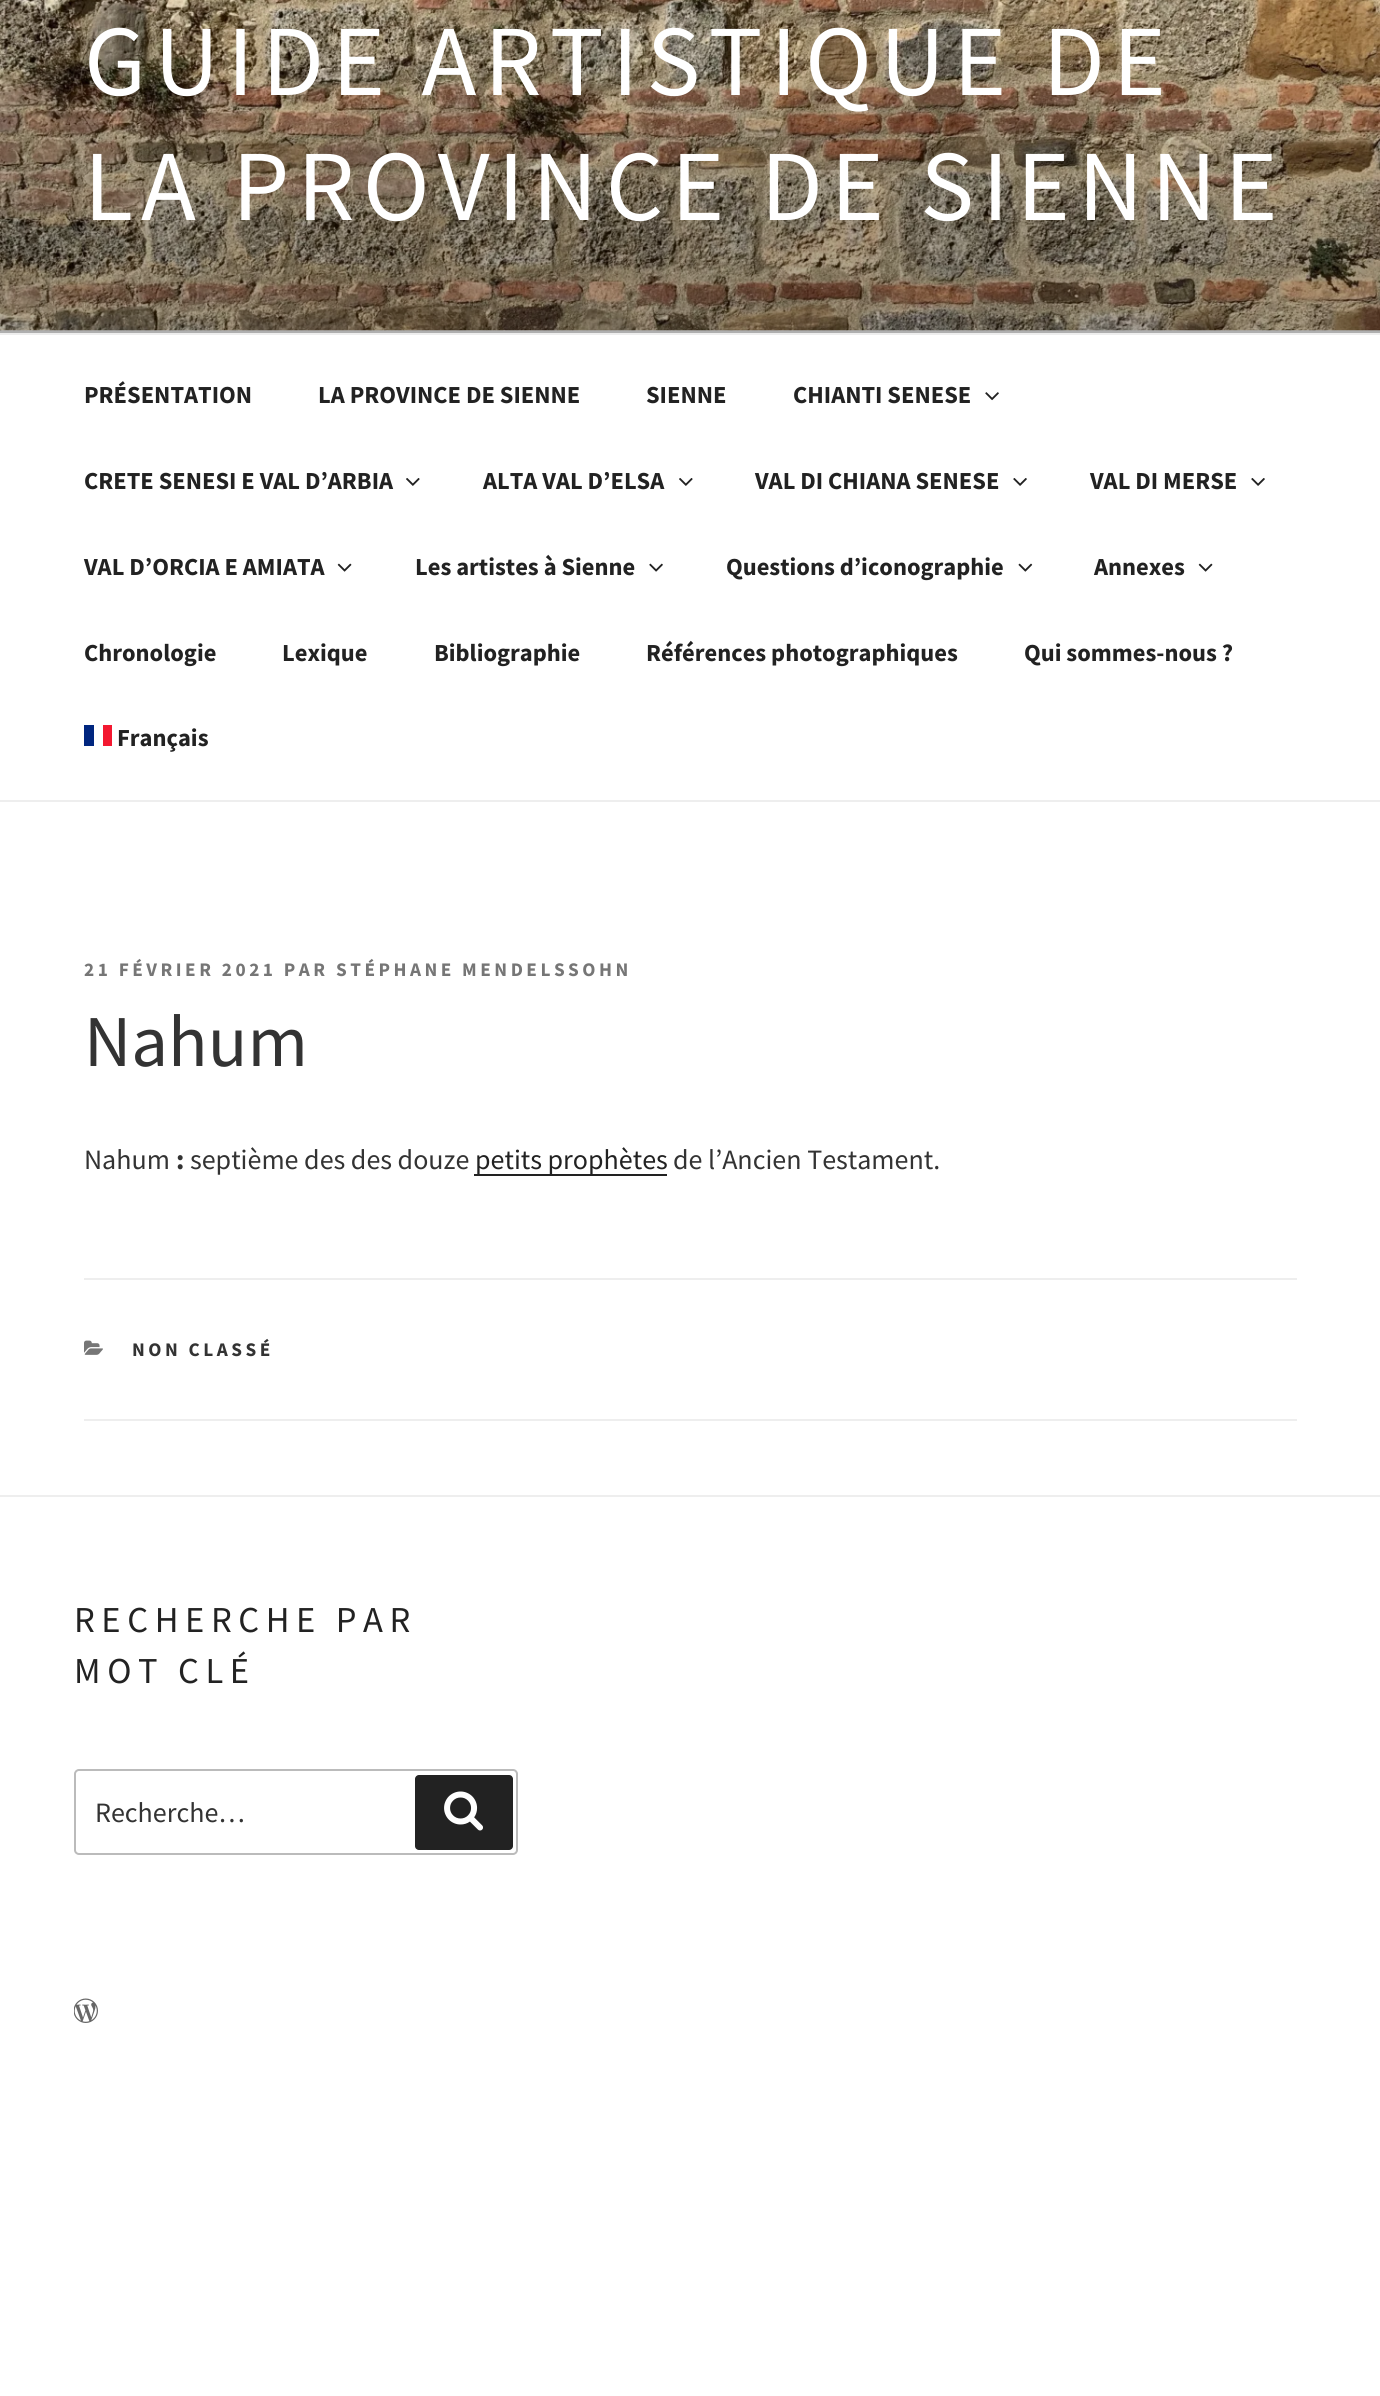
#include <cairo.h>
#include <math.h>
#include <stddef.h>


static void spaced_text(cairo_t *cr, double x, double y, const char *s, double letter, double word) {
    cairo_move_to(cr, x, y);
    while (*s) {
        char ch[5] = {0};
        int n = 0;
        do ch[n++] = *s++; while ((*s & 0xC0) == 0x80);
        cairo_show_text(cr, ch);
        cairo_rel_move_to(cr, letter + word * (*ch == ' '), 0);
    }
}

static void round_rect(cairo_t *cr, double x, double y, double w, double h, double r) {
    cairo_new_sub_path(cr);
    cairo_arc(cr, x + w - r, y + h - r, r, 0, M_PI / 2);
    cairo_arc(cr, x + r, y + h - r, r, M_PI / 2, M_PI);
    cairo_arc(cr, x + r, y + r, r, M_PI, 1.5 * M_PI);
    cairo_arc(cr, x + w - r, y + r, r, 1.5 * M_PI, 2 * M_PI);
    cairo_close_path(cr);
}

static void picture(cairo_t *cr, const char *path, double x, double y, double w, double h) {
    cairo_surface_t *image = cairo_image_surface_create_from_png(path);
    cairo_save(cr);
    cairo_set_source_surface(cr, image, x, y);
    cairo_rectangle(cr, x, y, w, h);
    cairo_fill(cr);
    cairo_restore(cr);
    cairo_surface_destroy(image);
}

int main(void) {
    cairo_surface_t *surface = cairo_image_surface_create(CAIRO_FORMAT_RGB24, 1380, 2396);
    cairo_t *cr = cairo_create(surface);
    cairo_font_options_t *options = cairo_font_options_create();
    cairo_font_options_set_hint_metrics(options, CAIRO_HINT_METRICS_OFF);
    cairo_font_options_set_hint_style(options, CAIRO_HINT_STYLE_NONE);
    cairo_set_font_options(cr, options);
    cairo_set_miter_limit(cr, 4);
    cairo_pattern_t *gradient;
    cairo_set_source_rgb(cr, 1, 1, 1);
    cairo_paint(cr);
    cairo_set_source_rgb(cr, 0.98, 0.98, 0.98);
    cairo_rectangle(cr, 0, 330, 1380, 3);
    cairo_fill(cr);
    picture(cr, "img1.png", 0, 0, 1380, 331);
    gradient = cairo_pattern_create_linear(690, -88, 690, 333);
    cairo_pattern_add_color_stop_rgba(gradient, 0, 0, 0, 0, 0);
    cairo_pattern_add_color_stop_rgba(gradient, 0.75, 0, 0, 0, 0.3);
    cairo_pattern_add_color_stop_rgba(gradient, 1, 0, 0, 0, 0.3);
    cairo_set_source(cr, gradient);
    cairo_pattern_destroy(gradient);
    cairo_rectangle(cr, 0, 0, 1380, 333);
    cairo_fill(cr);
    cairo_select_font_face(cr, "Source Sans Pro", CAIRO_FONT_SLANT_NORMAL, CAIRO_FONT_WEIGHT_NORMAL);
    cairo_set_font_size(cr, 100.75);
    cairo_set_source_rgb(cr, 1, 1, 1);
    spaced_text(cr, 84, 95, "GUIDE ARTISTIQUE DE", 8.1, 0);
    spaced_text(cr, 84, 220, "LA PROVINCE DE SIENNE", 8.1, 0);
    cairo_set_source_rgb(cr, 0.933, 0.933, 0.933);
    cairo_rectangle(cr, 0, 333, 1380, 2);
    cairo_fill(cr);
    cairo_rectangle(cr, 0, 800, 1380, 2);
    cairo_fill(cr);
    cairo_select_font_face(cr, "Source Sans Pro", CAIRO_FONT_SLANT_NORMAL, CAIRO_FONT_WEIGHT_BOLD);
    cairo_set_font_size(cr, 24.5);
    cairo_set_source_rgb(cr, 0.133, 0.133, 0.133);
    cairo_move_to(cr, 84, 403);
    cairo_show_text(cr, "PRÉSENTATION");
    cairo_move_to(cr, 318, 403);
    cairo_show_text(cr, "LA PROVINCE DE SIENNE");
    cairo_move_to(cr, 646, 403);
    cairo_show_text(cr, "SIENNE");
    cairo_move_to(cr, 793, 403);
    cairo_show_text(cr, "CHIANTI SENESE");
    picture(cr, "img2.png", 985, 392, 14, 9);
    cairo_move_to(cr, 84, 489);
    cairo_show_text(cr, "CRETE SENESI E VAL D’ARBIA");
    picture(cr, "img3.png", 406, 478, 14, 8);
    cairo_move_to(cr, 483, 489);
    cairo_show_text(cr, "ALTA VAL D’ELSA");
    picture(cr, "img3.png", 679, 478, 14, 8);
    cairo_move_to(cr, 755, 489);
    cairo_show_text(cr, "VAL DI CHIANA SENESE");
    picture(cr, "img4.png", 1013, 478, 14, 8);
    cairo_move_to(cr, 1090, 489);
    cairo_show_text(cr, "VAL DI MERSE");
    picture(cr, "img4.png", 1251, 478, 14, 8);
    cairo_move_to(cr, 84, 575);
    cairo_show_text(cr, "VAL D’ORCIA E AMIATA");
    picture(cr, "img5.png", 337, 563, 15, 9);
    cairo_move_to(cr, 415, 575);
    cairo_show_text(cr, "Les artistes à Sienne");
    picture(cr, "img6.png", 649, 563, 14, 9);
    cairo_move_to(cr, 726, 575);
    cairo_show_text(cr, "Questions d’iconographie");
    picture(cr, "img7.png", 1018, 563, 15, 9);
    cairo_move_to(cr, 1094, 575);
    cairo_show_text(cr, "Annexes");
    picture(cr, "img5.png", 1198, 563, 15, 9);
    cairo_move_to(cr, 84, 661);
    cairo_show_text(cr, "Chronologie");
    cairo_move_to(cr, 282, 661);
    cairo_show_text(cr, "Lexique");
    cairo_move_to(cr, 434, 661);
    cairo_show_text(cr, "Bibliographie");
    cairo_move_to(cr, 646, 661);
    cairo_show_text(cr, "Références photographiques");
    cairo_move_to(cr, 1024, 661);
    cairo_show_text(cr, "Qui sommes-nous ?");
    cairo_set_source_rgb(cr, 0, 0.149, 0.498);
    cairo_rectangle(cr, 84, 725, 10, 21);
    cairo_fill(cr);
    cairo_set_source_rgb(cr, 0.953, 0.094, 0.188);
    cairo_rectangle(cr, 103, 725, 9, 21);
    cairo_fill(cr);
    cairo_set_source_rgb(cr, 0.133, 0.133, 0.133);
    cairo_move_to(cr, 117, 746);
    cairo_show_text(cr, "Français");
    cairo_set_font_size(cr, 19.25);
    cairo_set_source_rgb(cr, 0.463, 0.463, 0.463);
    spaced_text(cr, 84, 976, "21 FÉVRIER 2021 PAR STÉPHANE MENDELSSOHN", 3.5, 0);
    cairo_select_font_face(cr, "Source Sans Pro", CAIRO_FONT_SLANT_NORMAL, CAIRO_FONT_WEIGHT_NORMAL);
    cairo_set_font_size(cr, 73);
    cairo_set_source_rgb(cr, 0.2, 0.2, 0.2);
    cairo_move_to(cr, 84, 1066);
    cairo_show_text(cr, "Nahum");
    cairo_set_font_size(cr, 28);
    cairo_move_to(cr, 84, 1169);
    cairo_show_text(cr, "Nahum");
    cairo_select_font_face(cr, "Source Sans Pro", CAIRO_FONT_SLANT_NORMAL, CAIRO_FONT_WEIGHT_BOLD);
    cairo_move_to(cr, 176, 1169);
    cairo_show_text(cr, ":");
    cairo_select_font_face(cr, "Source Sans Pro", CAIRO_FONT_SLANT_NORMAL, CAIRO_FONT_WEIGHT_NORMAL);
    cairo_move_to(cr, 190, 1169);
    cairo_show_text(cr, "septième des des douze");
    cairo_set_source_rgb(cr, 0.133, 0.133, 0.133);
    cairo_rectangle(cr, 474, 1174, 193, 2);
    cairo_fill(cr);
    cairo_move_to(cr, 475, 1169);
    cairo_show_text(cr, "petits prophètes");
    cairo_set_source_rgb(cr, 0.2, 0.2, 0.2);
    cairo_move_to(cr, 673, 1169);
    cairo_show_text(cr, "de l’Ancien Testament.");
    cairo_set_source_rgb(cr, 0.933, 0.933, 0.933);
    cairo_rectangle(cr, 84, 1278, 1213, 2);
    cairo_fill(cr);
    cairo_rectangle(cr, 84, 1419, 1213, 2);
    cairo_fill(cr);
    picture(cr, "img8.png", 84, 1340, 19, 15);
    cairo_select_font_face(cr, "Source Sans Pro", CAIRO_FONT_SLANT_NORMAL, CAIRO_FONT_WEIGHT_BOLD);
    cairo_set_font_size(cr, 19.25);
    cairo_set_source_rgb(cr, 0.2, 0.2, 0.2);
    spaced_text(cr, 132, 1356, "NON CLASSÉ", 3.5, 0);
    cairo_set_source_rgb(cr, 0.933, 0.933, 0.933);
    cairo_rectangle(cr, 0, 1495, 1380, 2);
    cairo_fill(cr);
    cairo_select_font_face(cr, "Source Sans Pro", CAIRO_FONT_SLANT_NORMAL, CAIRO_FONT_WEIGHT_NORMAL);
    cairo_set_font_size(cr, 36.5);
    cairo_set_source_rgb(cr, 0.133, 0.133, 0.133);
    spaced_text(cr, 74, 1632, "RECHERCHE PAR", 6.6, 0);
    spaced_text(cr, 74, 1683, "MOT CLÉ", 6.6, 0);
    round_rect(cr, 75, 1770, 442, 84, 4);
    cairo_set_source_rgb(cr, 0.733, 0.733, 0.733);
    cairo_stroke(cr);
    cairo_set_font_size(cr, 28);
    cairo_set_source_rgb(cr, 0.2, 0.2, 0.2);
    cairo_move_to(cr, 95, 1822);
    cairo_show_text(cr, "Recherche…");
    cairo_set_source_rgb(cr, 0.133, 0.133, 0.133);
    round_rect(cr, 415, 1775, 98, 75, 4);
    cairo_fill(cr);
    picture(cr, "img9.png", 444, 1791, 39, 40);
    picture(cr, "img10.png", 74, 1998, 24, 25);
    cairo_surface_write_to_png(surface, "page.png");
    cairo_font_options_destroy(options);
    cairo_destroy(cr);
    cairo_surface_destroy(surface);
    return 0;
}
